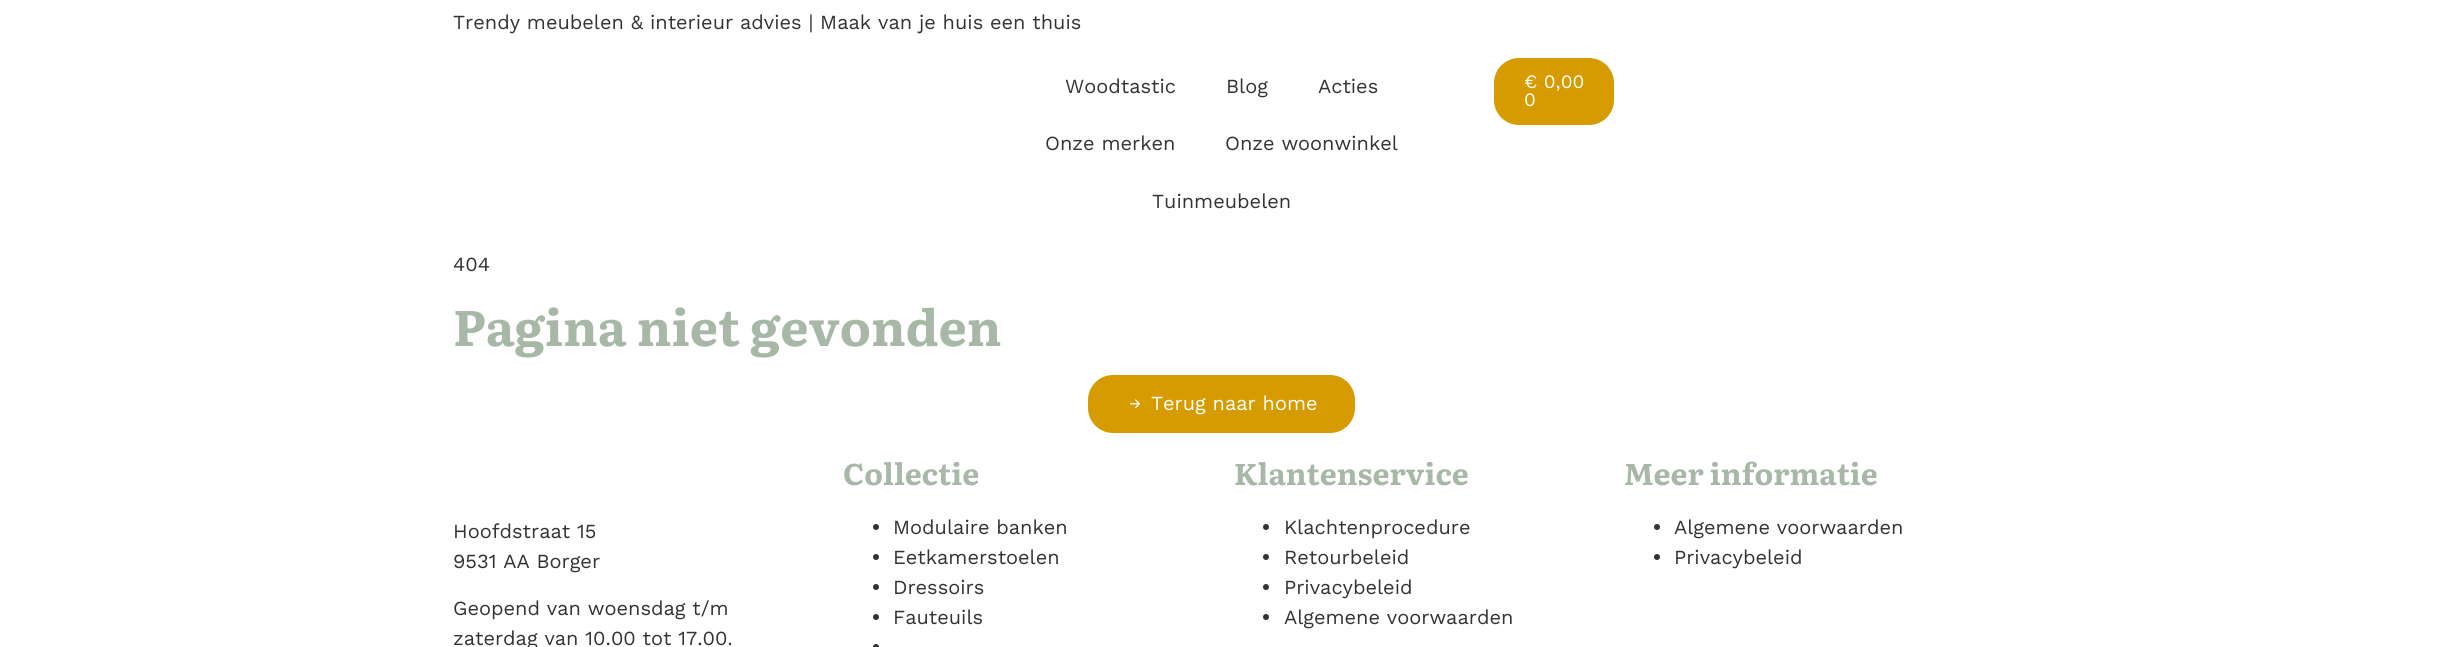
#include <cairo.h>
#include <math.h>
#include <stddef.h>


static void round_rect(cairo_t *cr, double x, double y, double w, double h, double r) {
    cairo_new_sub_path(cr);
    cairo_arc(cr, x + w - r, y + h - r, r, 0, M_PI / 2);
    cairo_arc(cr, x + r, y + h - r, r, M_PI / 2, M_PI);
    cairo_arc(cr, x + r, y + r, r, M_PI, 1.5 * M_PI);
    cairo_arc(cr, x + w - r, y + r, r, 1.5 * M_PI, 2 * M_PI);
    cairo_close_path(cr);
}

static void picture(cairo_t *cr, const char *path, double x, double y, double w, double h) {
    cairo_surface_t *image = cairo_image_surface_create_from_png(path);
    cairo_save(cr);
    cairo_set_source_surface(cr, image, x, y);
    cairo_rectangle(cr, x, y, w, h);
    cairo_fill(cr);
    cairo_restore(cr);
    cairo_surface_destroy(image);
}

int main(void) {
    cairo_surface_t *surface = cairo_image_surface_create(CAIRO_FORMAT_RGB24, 2442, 647);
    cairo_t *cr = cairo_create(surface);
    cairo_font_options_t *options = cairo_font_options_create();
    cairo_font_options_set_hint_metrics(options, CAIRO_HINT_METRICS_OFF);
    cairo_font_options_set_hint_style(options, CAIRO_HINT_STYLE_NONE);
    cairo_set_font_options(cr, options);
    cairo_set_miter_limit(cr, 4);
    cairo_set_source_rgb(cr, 1, 1, 1);
    cairo_paint(cr);
    cairo_select_font_face(cr, "Work Sans", CAIRO_FONT_SLANT_NORMAL, CAIRO_FONT_WEIGHT_NORMAL);
    cairo_set_font_size(cr, 20);
    cairo_set_source_rgb(cr, 0.2, 0.2, 0.2);
    cairo_move_to(cr, 453, 29);
    cairo_show_text(cr, "Trendy meubelen & interieur advies | Maak van je huis een thuis");
    cairo_move_to(cr, 1065, 93);
    cairo_show_text(cr, "Woodtastic");
    cairo_move_to(cr, 1226, 93);
    cairo_show_text(cr, "Blog");
    cairo_move_to(cr, 1318, 93);
    cairo_show_text(cr, "Acties");
    cairo_move_to(cr, 1045, 150);
    cairo_show_text(cr, "Onze merken");
    cairo_move_to(cr, 1225, 150);
    cairo_show_text(cr, "Onze woonwinkel");
    cairo_move_to(cr, 1152, 208);
    cairo_show_text(cr, "Tuinmeubelen");
    cairo_set_source_rgb(cr, 0.835, 0.608, 0);
    round_rect(cr, 1494, 58, 120, 67, 25);
    cairo_fill(cr);
    cairo_set_font_size(cr, 19);
    cairo_set_source_rgb(cr, 1, 1, 1);
    cairo_move_to(cr, 1524, 88);
    cairo_show_text(cr, "€ 0,00");
    cairo_move_to(cr, 1524, 106);
    cairo_show_text(cr, "0");
    cairo_set_font_size(cr, 20);
    cairo_set_source_rgb(cr, 0.2, 0.2, 0.2);
    cairo_move_to(cr, 453, 271);
    cairo_show_text(cr, "404");
    cairo_select_font_face(cr, "Literata", CAIRO_FONT_SLANT_NORMAL, CAIRO_FONT_WEIGHT_BOLD);
    cairo_set_font_size(cr, 50);
    cairo_set_source_rgb(cr, 0.659, 0.722, 0.655);
    cairo_move_to(cr, 453, 346);
    cairo_show_text(cr, "Pagina niet gevonden");
    cairo_set_source_rgb(cr, 0.835, 0.608, 0);
    round_rect(cr, 1088, 375, 267, 58, 25);
    cairo_fill(cr);
    picture(cr, "img1.png", 1130, 399, 10, 10);
    cairo_select_font_face(cr, "Work Sans", CAIRO_FONT_SLANT_NORMAL, CAIRO_FONT_WEIGHT_NORMAL);
    cairo_set_font_size(cr, 20);
    cairo_set_source_rgb(cr, 1, 1, 1);
    cairo_move_to(cr, 1151, 410);
    cairo_show_text(cr, "Terug naar home");
    cairo_set_source_rgb(cr, 0.2, 0.2, 0.2);
    cairo_move_to(cr, 453, 538);
    cairo_show_text(cr, "Hoofdstraat 15");
    cairo_move_to(cr, 453, 568);
    cairo_show_text(cr, "9531 AA Borger");
    cairo_move_to(cr, 453, 615);
    cairo_show_text(cr, "Geopend van woensdag t/m");
    cairo_move_to(cr, 453, 645);
    cairo_show_text(cr, "zaterdag van 10.00 tot 17.00.");
    cairo_select_font_face(cr, "Literata", CAIRO_FONT_SLANT_NORMAL, CAIRO_FONT_WEIGHT_BOLD);
    cairo_set_font_size(cr, 30);
    cairo_set_source_rgb(cr, 0.659, 0.722, 0.655);
    cairo_move_to(cr, 843, 485);
    cairo_show_text(cr, "Collectie");
    cairo_set_source_rgb(cr, 0.2, 0.2, 0.2);
    cairo_new_path(cr);
    cairo_arc(cr, 876, 527, 3, 0, 2 * M_PI);
    cairo_fill(cr);
    cairo_select_font_face(cr, "Work Sans", CAIRO_FONT_SLANT_NORMAL, CAIRO_FONT_WEIGHT_NORMAL);
    cairo_set_font_size(cr, 20);
    cairo_move_to(cr, 893, 534);
    cairo_show_text(cr, "Modulaire banken");
    cairo_new_path(cr);
    cairo_arc(cr, 876, 557, 3, 0, 2 * M_PI);
    cairo_fill(cr);
    cairo_move_to(cr, 893, 564);
    cairo_show_text(cr, "Eetkamerstoelen");
    cairo_new_path(cr);
    cairo_arc(cr, 876, 587, 3, 0, 2 * M_PI);
    cairo_fill(cr);
    cairo_move_to(cr, 893, 594);
    cairo_show_text(cr, "Dressoirs");
    cairo_new_path(cr);
    cairo_arc(cr, 876, 617, 3, 0, 2 * M_PI);
    cairo_fill(cr);
    cairo_move_to(cr, 893, 624);
    cairo_show_text(cr, "Fauteuils");
    cairo_new_path(cr);
    cairo_arc(cr, 876, 647, 3, 0, 2 * M_PI);
    cairo_fill(cr);
    cairo_select_font_face(cr, "Literata", CAIRO_FONT_SLANT_NORMAL, CAIRO_FONT_WEIGHT_BOLD);
    cairo_set_font_size(cr, 30);
    cairo_set_source_rgb(cr, 0.659, 0.722, 0.655);
    cairo_move_to(cr, 1234, 485);
    cairo_show_text(cr, "Klantenservice");
    cairo_set_source_rgb(cr, 0.2, 0.2, 0.2);
    cairo_new_path(cr);
    cairo_arc(cr, 1266, 527, 3, 0, 2 * M_PI);
    cairo_fill(cr);
    cairo_select_font_face(cr, "Work Sans", CAIRO_FONT_SLANT_NORMAL, CAIRO_FONT_WEIGHT_NORMAL);
    cairo_set_font_size(cr, 20);
    cairo_move_to(cr, 1284, 534);
    cairo_show_text(cr, "Klachtenprocedure");
    cairo_new_path(cr);
    cairo_arc(cr, 1266, 557, 3, 0, 2 * M_PI);
    cairo_fill(cr);
    cairo_move_to(cr, 1284, 564);
    cairo_show_text(cr, "Retourbeleid");
    cairo_new_path(cr);
    cairo_arc(cr, 1266, 587, 3, 0, 2 * M_PI);
    cairo_fill(cr);
    cairo_move_to(cr, 1284, 594);
    cairo_show_text(cr, "Privacybeleid");
    cairo_new_path(cr);
    cairo_arc(cr, 1266, 617, 3, 0, 2 * M_PI);
    cairo_fill(cr);
    cairo_move_to(cr, 1284, 624);
    cairo_show_text(cr, "Algemene voorwaarden");
    cairo_select_font_face(cr, "Literata", CAIRO_FONT_SLANT_NORMAL, CAIRO_FONT_WEIGHT_BOLD);
    cairo_set_font_size(cr, 30);
    cairo_set_source_rgb(cr, 0.659, 0.722, 0.655);
    cairo_move_to(cr, 1624, 485);
    cairo_show_text(cr, "Meer informatie");
    cairo_set_source_rgb(cr, 0.2, 0.2, 0.2);
    cairo_new_path(cr);
    cairo_arc(cr, 1657, 527, 3, 0, 2 * M_PI);
    cairo_fill(cr);
    cairo_select_font_face(cr, "Work Sans", CAIRO_FONT_SLANT_NORMAL, CAIRO_FONT_WEIGHT_NORMAL);
    cairo_set_font_size(cr, 20);
    cairo_move_to(cr, 1674, 534);
    cairo_show_text(cr, "Algemene voorwaarden");
    cairo_new_path(cr);
    cairo_arc(cr, 1657, 557, 3, 0, 2 * M_PI);
    cairo_fill(cr);
    cairo_move_to(cr, 1674, 564);
    cairo_show_text(cr, "Privacybeleid");
    cairo_surface_write_to_png(surface, "page.png");
    cairo_font_options_destroy(options);
    cairo_destroy(cr);
    cairo_surface_destroy(surface);
    return 0;
}
